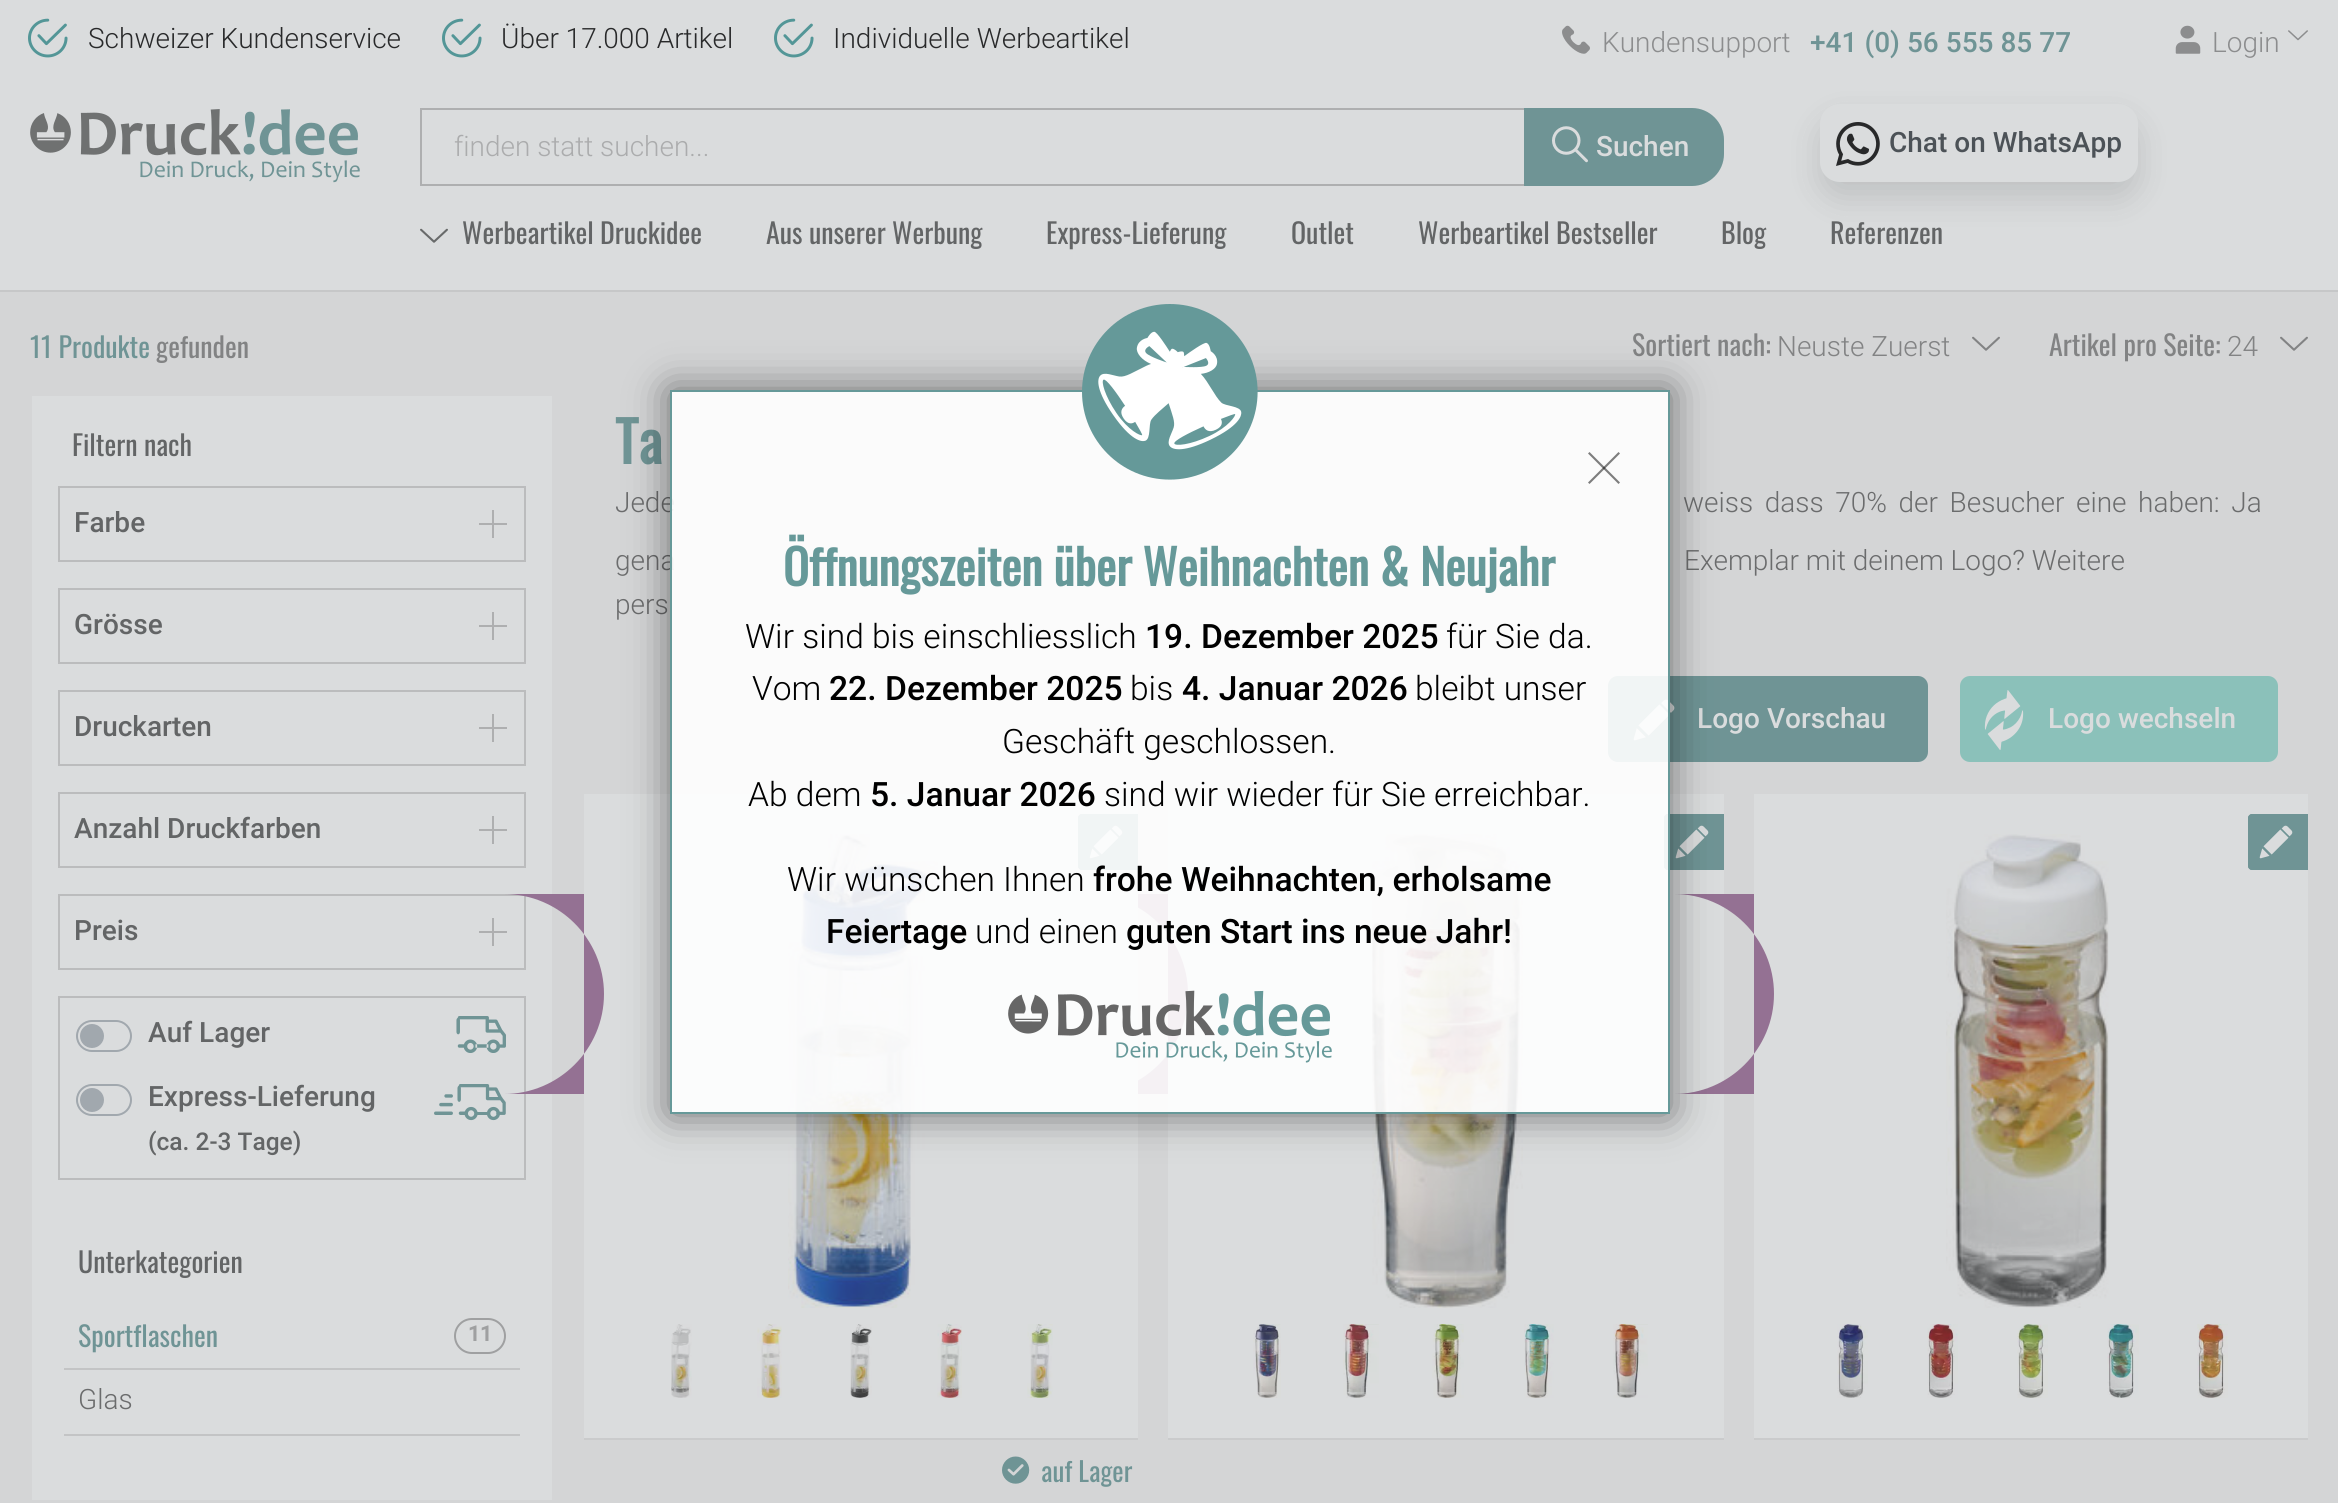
#include <cairo.h>
#include <math.h>
#include <stddef.h>


static void spaced_text(cairo_t *cr, double x, double y, const char *s, double letter, double word) {
    cairo_move_to(cr, x, y);
    while (*s) {
        char ch[5] = {0};
        int n = 0;
        do ch[n++] = *s++; while ((*s & 0xC0) == 0x80);
        cairo_show_text(cr, ch);
        cairo_rel_move_to(cr, letter + word * (*ch == ' '), 0);
    }
}

static void round_rect(cairo_t *cr, double x, double y, double w, double h, double r) {
    cairo_new_sub_path(cr);
    cairo_arc(cr, x + w - r, y + h - r, r, 0, M_PI / 2);
    cairo_arc(cr, x + r, y + h - r, r, M_PI / 2, M_PI);
    cairo_arc(cr, x + r, y + r, r, M_PI, 1.5 * M_PI);
    cairo_arc(cr, x + w - r, y + r, r, 1.5 * M_PI, 2 * M_PI);
    cairo_close_path(cr);
}

static void shadow(cairo_t *cr, double x, double y, double w, double h, double r, double blur, double alpha) {
    cairo_push_group_with_content(cr, CAIRO_CONTENT_ALPHA);
    cairo_set_operator(cr, CAIRO_OPERATOR_SOURCE);
    for (int i = 15; i >= -15 && fmin(w, h) + blur * i / 3 > 0; i -= 2) {
        double e = blur * i / 6;
        cairo_set_source_rgba(cr, 0, 0, 0, alpha * erfc((i - 1) / 8.5) / 2);
        round_rect(cr, x - e, y - e, w + 2 * e, h + 2 * e, fmax(0, fmin(r + e + blur * .6, fmin(w, h) / 2 + e)));
        cairo_fill(cr);
    }
    cairo_pattern_t *soft = cairo_pop_group(cr);
    cairo_mask(cr, soft);
    cairo_pattern_destroy(soft);
}

static void picture(cairo_t *cr, const char *path, double x, double y, double w, double h) {
    cairo_surface_t *image = cairo_image_surface_create_from_png(path);
    cairo_save(cr);
    cairo_set_source_surface(cr, image, x, y);
    cairo_rectangle(cr, x, y, w, h);
    cairo_fill(cr);
    cairo_restore(cr);
    cairo_surface_destroy(image);
}

int main(void) {
    cairo_surface_t *surface = cairo_image_surface_create(CAIRO_FORMAT_RGB24, 2338, 1503);
    cairo_t *cr = cairo_create(surface);
    cairo_font_options_t *options = cairo_font_options_create();
    cairo_font_options_set_hint_metrics(options, CAIRO_HINT_METRICS_OFF);
    cairo_font_options_set_hint_style(options, CAIRO_HINT_STYLE_NONE);
    cairo_set_font_options(cr, options);
    cairo_set_miter_limit(cr, 4);
    cairo_set_source_rgb(cr, 0.831, 0.835, 0.839);
    cairo_paint(cr);
    cairo_set_source_rgb(cr, 0.855, 0.863, 0.867);
    cairo_rectangle(cr, 0, 0, 2338, 290);
    cairo_fill(cr);
    cairo_set_source_rgb(cr, 0.776, 0.78, 0.784);
    cairo_rectangle(cr, 0, 290, 2338, 2);
    cairo_fill(cr);
    picture(cr, "img1.png", 28, 18, 40, 40);
    cairo_select_font_face(cr, "Roboto Light", CAIRO_FONT_SLANT_NORMAL, CAIRO_FONT_WEIGHT_NORMAL);
    cairo_set_font_size(cr, 28);
    cairo_set_source_rgb(cr, 0.157, 0.161, 0.165);
    cairo_move_to(cr, 88, 48);
    cairo_show_text(cr, "Schweizer Kundenservice");
    picture(cr, "img1.png", 442, 18, 40, 40);
    cairo_move_to(cr, 501, 48);
    cairo_show_text(cr, "Über 17.000 Artikel");
    picture(cr, "img1.png", 774, 18, 40, 40);
    cairo_move_to(cr, 833, 48);
    cairo_show_text(cr, "Individuelle Werbeartikel");
    picture(cr, "img2.png", 30, 109, 330, 74);
    cairo_rectangle(cr, 421, 109, 1104, 76);
    cairo_set_source_rgb(cr, 0.682, 0.686, 0.69);
    cairo_stroke(cr);
    cairo_set_source_rgb(cr, 0.671, 0.675, 0.678);
    cairo_move_to(cr, 454, 156);
    cairo_show_text(cr, "finden statt suchen...");
    cairo_set_source_rgb(cr, 0.435, 0.58, 0.584);
    cairo_new_path(cr);
    cairo_move_to(cr, 1525, 109);
    cairo_line_to(cr, 1692, 109);
    cairo_curve_to(cr, 1709, 109, 1723, 123, 1723, 140);
    cairo_line_to(cr, 1723, 154);
    cairo_curve_to(cr, 1723, 171, 1709, 185, 1692, 185);
    cairo_line_to(cr, 1525, 185);
    cairo_close_path(cr);
    cairo_fill_preserve(cr);
    cairo_stroke(cr);
    picture(cr, "img3.png", 1552, 126, 36, 37);
    cairo_select_font_face(cr, "Roboto Medium", CAIRO_FONT_SLANT_NORMAL, CAIRO_FONT_WEIGHT_NORMAL);
    cairo_set_source_rgb(cr, 0.855, 0.863, 0.867);
    cairo_move_to(cr, 1596, 156);
    cairo_show_text(cr, "Suchen");
    picture(cr, "img4.png", 420, 228, 28, 15);
    cairo_select_font_face(cr, "Oswald", CAIRO_FONT_SLANT_NORMAL, CAIRO_FONT_WEIGHT_NORMAL);
    cairo_set_source_rgb(cr, 0.388, 0.396, 0.4);
    cairo_move_to(cr, 462, 244);
    cairo_show_text(cr, "Werbeartikel Druckidee");
    cairo_move_to(cr, 766, 244);
    cairo_show_text(cr, "Aus unserer Werbung");
    cairo_move_to(cr, 1046, 244);
    cairo_show_text(cr, "Express-Lieferung");
    cairo_move_to(cr, 1291, 244);
    cairo_show_text(cr, "Outlet");
    cairo_move_to(cr, 1418, 244);
    cairo_show_text(cr, "Werbeartikel Bestseller");
    cairo_move_to(cr, 1721, 244);
    cairo_show_text(cr, "Blog");
    cairo_move_to(cr, 1830, 244);
    cairo_show_text(cr, "Referenzen");
    picture(cr, "img5.png", 1562, 25, 28, 29);
    cairo_select_font_face(cr, "Roboto Light", CAIRO_FONT_SLANT_NORMAL, CAIRO_FONT_WEIGHT_NORMAL);
    cairo_set_source_rgb(cr, 0.549, 0.553, 0.557);
    cairo_move_to(cr, 1602, 52);
    cairo_show_text(cr, "Kundensupport");
    cairo_select_font_face(cr, "Roboto Medium", CAIRO_FONT_SLANT_NORMAL, CAIRO_FONT_WEIGHT_NORMAL);
    cairo_set_source_rgb(cr, 0.435, 0.58, 0.584);
    cairo_move_to(cr, 1810, 52);
    cairo_show_text(cr, "+41 (0) 56 555 85 77");
    picture(cr, "img6.png", 2175, 25, 26, 29);
    cairo_select_font_face(cr, "Roboto Light", CAIRO_FONT_SLANT_NORMAL, CAIRO_FONT_WEIGHT_NORMAL);
    cairo_set_source_rgb(cr, 0.549, 0.553, 0.557);
    cairo_move_to(cr, 2212, 52);
    cairo_show_text(cr, "Login");
    picture(cr, "img7.png", 2288, 30, 20, 11);
    cairo_set_source_rgb(cr, 0.157, 0.161, 0.165);
    shadow(cr, 1820, 120, 318, 78, 20, 16, 0.15);
    cairo_set_source_rgb(cr, 0.855, 0.863, 0.867);
    round_rect(cr, 1820, 104, 318, 78, 20);
    cairo_fill(cr);
    picture(cr, "img8.png", 1836, 122, 44, 44);
    cairo_select_font_face(cr, "Roboto Medium", CAIRO_FONT_SLANT_NORMAL, CAIRO_FONT_WEIGHT_NORMAL);
    cairo_set_source_rgb(cr, 0.298, 0.322, 0.341);
    cairo_move_to(cr, 1889, 152);
    cairo_show_text(cr, "Chat on WhatsApp");
    cairo_select_font_face(cr, "Oswald", CAIRO_FONT_SLANT_NORMAL, CAIRO_FONT_WEIGHT_NORMAL);
    cairo_set_source_rgb(cr, 0.435, 0.58, 0.584);
    cairo_move_to(cr, 30, 358);
    cairo_show_text(cr, "11 Produkte");
    cairo_set_source_rgb(cr, 0.51, 0.514, 0.518);
    cairo_move_to(cr, 156, 358);
    cairo_show_text(cr, "gefunden");
    cairo_move_to(cr, 1632, 356);
    cairo_show_text(cr, "Sortiert nach:");
    cairo_select_font_face(cr, "Roboto Light", CAIRO_FONT_SLANT_NORMAL, CAIRO_FONT_WEIGHT_NORMAL);
    cairo_move_to(cr, 1777, 356);
    cairo_show_text(cr, "Neuste Zuerst");
    picture(cr, "img9.png", 1972, 336, 28, 15);
    cairo_select_font_face(cr, "Oswald", CAIRO_FONT_SLANT_NORMAL, CAIRO_FONT_WEIGHT_NORMAL);
    cairo_move_to(cr, 2049, 356);
    cairo_show_text(cr, "Artikel pro Seite:");
    cairo_select_font_face(cr, "Roboto Light", CAIRO_FONT_SLANT_NORMAL, CAIRO_FONT_WEIGHT_NORMAL);
    cairo_move_to(cr, 2227, 356);
    cairo_show_text(cr, "24");
    picture(cr, "img9.png", 2280, 336, 28, 15);
    cairo_set_source_rgb(cr, 0.855, 0.863, 0.867);
    cairo_rectangle(cr, 32, 396, 520, 1104);
    cairo_fill(cr);
    cairo_select_font_face(cr, "Oswald", CAIRO_FONT_SLANT_NORMAL, CAIRO_FONT_WEIGHT_NORMAL);
    cairo_set_source_rgb(cr, 0.388, 0.396, 0.4);
    cairo_move_to(cr, 72, 456);
    cairo_show_text(cr, "Filtern nach");
    cairo_rectangle(cr, 59, 487, 466, 74);
    cairo_set_source_rgb(cr, 0.733, 0.737, 0.741);
    cairo_stroke(cr);
    cairo_select_font_face(cr, "Roboto Medium", CAIRO_FONT_SLANT_NORMAL, CAIRO_FONT_WEIGHT_NORMAL);
    cairo_set_source_rgb(cr, 0.388, 0.396, 0.4);
    cairo_move_to(cr, 74, 532);
    cairo_show_text(cr, "Farbe");
    cairo_set_source_rgb(cr, 0.682, 0.686, 0.69);
    cairo_rectangle(cr, 479, 523, 28, 2);
    cairo_fill(cr);
    cairo_rectangle(cr, 492, 510, 2, 28);
    cairo_fill(cr);
    cairo_rectangle(cr, 59, 589, 466, 74);
    cairo_set_source_rgb(cr, 0.733, 0.737, 0.741);
    cairo_stroke(cr);
    cairo_set_source_rgb(cr, 0.388, 0.396, 0.4);
    cairo_move_to(cr, 74, 634);
    cairo_show_text(cr, "Grösse");
    cairo_set_source_rgb(cr, 0.682, 0.686, 0.69);
    cairo_rectangle(cr, 479, 625, 28, 2);
    cairo_fill(cr);
    cairo_rectangle(cr, 492, 612, 2, 28);
    cairo_fill(cr);
    cairo_rectangle(cr, 59, 691, 466, 74);
    cairo_set_source_rgb(cr, 0.733, 0.737, 0.741);
    cairo_stroke(cr);
    cairo_set_source_rgb(cr, 0.388, 0.396, 0.4);
    cairo_move_to(cr, 74, 736);
    cairo_show_text(cr, "Druckarten");
    cairo_set_source_rgb(cr, 0.682, 0.686, 0.69);
    cairo_rectangle(cr, 479, 727, 28, 2);
    cairo_fill(cr);
    cairo_rectangle(cr, 492, 714, 2, 28);
    cairo_fill(cr);
    cairo_rectangle(cr, 59, 793, 466, 74);
    cairo_set_source_rgb(cr, 0.733, 0.737, 0.741);
    cairo_stroke(cr);
    cairo_set_source_rgb(cr, 0.388, 0.396, 0.4);
    cairo_move_to(cr, 74, 838);
    cairo_show_text(cr, "Anzahl Druckfarben");
    cairo_set_source_rgb(cr, 0.682, 0.686, 0.69);
    cairo_rectangle(cr, 479, 829, 28, 2);
    cairo_fill(cr);
    cairo_rectangle(cr, 492, 816, 2, 28);
    cairo_fill(cr);
    cairo_rectangle(cr, 59, 895, 466, 74);
    cairo_set_source_rgb(cr, 0.733, 0.737, 0.741);
    cairo_stroke(cr);
    cairo_set_source_rgb(cr, 0.388, 0.396, 0.4);
    cairo_move_to(cr, 74, 940);
    cairo_show_text(cr, "Preis");
    cairo_set_source_rgb(cr, 0.682, 0.686, 0.69);
    cairo_rectangle(cr, 479, 931, 28, 2);
    cairo_fill(cr);
    cairo_rectangle(cr, 492, 918, 2, 28);
    cairo_fill(cr);
    cairo_rectangle(cr, 59, 997, 466, 182);
    cairo_set_source_rgb(cr, 0.733, 0.737, 0.741);
    cairo_stroke(cr);
    round_rect(cr, 77, 1021, 54, 30, 15);
    cairo_set_source_rgb(cr, 0.631, 0.659, 0.682);
    cairo_stroke(cr);
    cairo_set_source_rgb(cr, 0.388, 0.396, 0.4);
    cairo_move_to(cr, 148, 1042);
    cairo_show_text(cr, "Auf Lager");
    cairo_set_source_rgb(cr, 0.631, 0.659, 0.682);
    cairo_new_path(cr);
    cairo_arc(cr, 92, 1036, 12, 0, 2 * M_PI);
    cairo_fill(cr);
    picture(cr, "img10.png", 456, 1016, 50, 37);
    round_rect(cr, 77, 1085, 54, 30, 15);
    cairo_stroke(cr);
    cairo_set_source_rgb(cr, 0.388, 0.396, 0.4);
    cairo_move_to(cr, 148, 1106);
    cairo_show_text(cr, "Express-Lieferung");
    cairo_set_source_rgb(cr, 0.631, 0.659, 0.682);
    cairo_new_path(cr);
    cairo_arc(cr, 92, 1100, 12, 0, 2 * M_PI);
    cairo_fill(cr);
    cairo_set_font_size(cr, 24.5);
    cairo_set_source_rgb(cr, 0.388, 0.396, 0.4);
    cairo_move_to(cr, 148, 1150);
    cairo_show_text(cr, "(ca. 2-3 Tage)");
    picture(cr, "img11.png", 434, 1084, 72, 37);
    cairo_select_font_face(cr, "Oswald", CAIRO_FONT_SLANT_NORMAL, CAIRO_FONT_WEIGHT_NORMAL);
    cairo_set_font_size(cr, 28);
    cairo_move_to(cr, 78, 1273);
    cairo_show_text(cr, "Unterkategorien");
    cairo_set_source_rgb(cr, 0.765, 0.769, 0.773);
    cairo_rectangle(cr, 64, 1368, 456, 2);
    cairo_fill(cr);
    cairo_set_source_rgb(cr, 0.435, 0.58, 0.584);
    cairo_move_to(cr, 78, 1347);
    cairo_show_text(cr, "Sportflaschen");
    round_rect(cr, 455, 1319, 50, 34, 17);
    cairo_set_source_rgb(cr, 0.624, 0.627, 0.631);
    cairo_stroke(cr);
    cairo_select_font_face(cr, "Roboto", CAIRO_FONT_SLANT_NORMAL, CAIRO_FONT_WEIGHT_BOLD);
    cairo_set_font_size(cr, 21);
    cairo_move_to(cr, 468, 1341);
    cairo_show_text(cr, "11");
    cairo_set_source_rgb(cr, 0.765, 0.769, 0.773);
    cairo_rectangle(cr, 64, 1434, 456, 2);
    cairo_fill(cr);
    cairo_select_font_face(cr, "Roboto Light", CAIRO_FONT_SLANT_NORMAL, CAIRO_FONT_WEIGHT_NORMAL);
    cairo_set_font_size(cr, 28);
    cairo_set_source_rgb(cr, 0.42, 0.424, 0.427);
    cairo_move_to(cr, 78, 1409);
    cairo_show_text(cr, "Glas");
    cairo_select_font_face(cr, "Oswald", CAIRO_FONT_SLANT_NORMAL, CAIRO_FONT_WEIGHT_BOLD);
    cairo_set_font_size(cr, 56);
    cairo_set_source_rgb(cr, 0.435, 0.58, 0.584);
    cairo_move_to(cr, 615, 464);
    cairo_show_text(cr, "Ta");
    cairo_select_font_face(cr, "Roboto Light", CAIRO_FONT_SLANT_NORMAL, CAIRO_FONT_WEIGHT_NORMAL);
    cairo_set_font_size(cr, 28);
    cairo_set_source_rgb(cr, 0.42, 0.424, 0.427);
    spaced_text(cr, 615, 512, "Jede", 0, 4.75);
    spaced_text(cr, 1683, 512, "weiss dass 70% der Besucher eine haben: Ja", 0, 4.75);
    cairo_move_to(cr, 615, 570);
    cairo_show_text(cr, "gena");
    cairo_move_to(cr, 1684, 570);
    cairo_show_text(cr, "Exemplar mit deinem Logo? Weitere");
    cairo_move_to(cr, 615, 614);
    cairo_show_text(cr, "pers");
    cairo_set_source_rgb(cr, 0.435, 0.58, 0.584);
    round_rect(cr, 1609, 677, 318, 84, 9);
    cairo_fill_preserve(cr);
    cairo_stroke(cr);
    picture(cr, "img12.png", 1633, 699, 42, 42);
    cairo_select_font_face(cr, "Roboto Medium", CAIRO_FONT_SLANT_NORMAL, CAIRO_FONT_WEIGHT_NORMAL);
    cairo_set_source_rgb(cr, 0.855, 0.863, 0.867);
    cairo_move_to(cr, 1697, 728);
    cairo_show_text(cr, "Logo Vorschau");
    cairo_set_source_rgb(cr, 0.545, 0.757, 0.729);
    round_rect(cr, 1961, 677, 316, 84, 9);
    cairo_fill_preserve(cr);
    cairo_stroke(cr);
    picture(cr, "img13.png", 1984, 690, 40, 60);
    cairo_set_source_rgb(cr, 0.855, 0.863, 0.867);
    cairo_move_to(cr, 2048, 728);
    cairo_show_text(cr, "Logo wechseln");
    cairo_rectangle(cr, 1168, 794, 556, 644);
    cairo_fill(cr);
    cairo_set_source_rgb(cr, 0.792, 0.796, 0.8);
    cairo_rectangle(cr, 1168, 1438, 556, 2);
    cairo_fill(cr);
    picture(cr, "img14.png", 1372, 834, 151, 474);
    picture(cr, "img15.png", 1253, 1324, 28, 74);
    picture(cr, "img16.png", 1343, 1324, 36, 74);
    picture(cr, "img17.png", 1432, 1324, 32, 74);
    picture(cr, "img18.png", 1524, 1324, 30, 74);
    picture(cr, "img19.png", 1613, 1324, 35, 74);
    cairo_set_source_rgb(cr, 0.58, 0.443, 0.576);
    cairo_new_path(cr);
    cairo_move_to(cr, 1168, 894);
    cairo_line_to(cr, 1088, 894);
    cairo_curve_to(cr, 1143, 894, 1188, 939, 1188, 994);
    cairo_curve_to(cr, 1188, 1049, 1143, 1094, 1088, 1094);
    cairo_line_to(cr, 1168, 1094);
    cairo_close_path(cr);
    cairo_fill(cr);
    cairo_set_source_rgb(cr, 0.435, 0.58, 0.584);
    cairo_new_path(cr);
    cairo_move_to(cr, 1668, 814);
    cairo_line_to(cr, 1724, 814);
    cairo_line_to(cr, 1724, 870);
    cairo_line_to(cr, 1668, 870);
    cairo_curve_to(cr, 1666, 870, 1664, 868, 1664, 866);
    cairo_line_to(cr, 1664, 818);
    cairo_curve_to(cr, 1664, 816, 1666, 814, 1668, 814);
    cairo_close_path(cr);
    cairo_fill(cr);
    cairo_set_source_rgb(cr, 0.855, 0.863, 0.867);
    cairo_rectangle(cr, 1754, 794, 554, 644);
    cairo_fill(cr);
    cairo_save(cr);
    cairo_rectangle(cr, 1664, 814, 60, 56);
    cairo_clip(cr);
    round_rect(cr, 1665, 815, 228, 54, 3);
    cairo_set_source_rgb(cr, 0.435, 0.58, 0.584);
    cairo_stroke(cr);
    cairo_restore(cr);
    picture(cr, "img20.png", 1675, 825, 34, 34);
    cairo_set_source_rgb(cr, 0.792, 0.796, 0.8);
    cairo_rectangle(cr, 1754, 1438, 554, 2);
    cairo_fill(cr);
    picture(cr, "img21.png", 1946, 834, 163, 474);
    picture(cr, "img22.png", 1837, 1324, 31, 74);
    picture(cr, "img23.png", 1927, 1324, 31, 74);
    picture(cr, "img24.png", 2017, 1324, 31, 74);
    picture(cr, "img25.png", 2107, 1324, 32, 74);
    picture(cr, "img26.png", 2197, 1324, 31, 74);
    cairo_set_source_rgb(cr, 0.58, 0.443, 0.576);
    cairo_new_path(cr);
    cairo_move_to(cr, 1754, 894);
    cairo_line_to(cr, 1674, 894);
    cairo_curve_to(cr, 1729, 894, 1774, 939, 1774, 994);
    cairo_curve_to(cr, 1774, 1049, 1729, 1094, 1674, 1094);
    cairo_line_to(cr, 1754, 1094);
    cairo_close_path(cr);
    cairo_fill(cr);
    cairo_set_source_rgb(cr, 0.435, 0.58, 0.584);
    cairo_new_path(cr);
    cairo_move_to(cr, 2252, 814);
    cairo_line_to(cr, 2308, 814);
    cairo_line_to(cr, 2308, 870);
    cairo_line_to(cr, 2252, 870);
    cairo_curve_to(cr, 2250, 870, 2248, 868, 2248, 866);
    cairo_line_to(cr, 2248, 818);
    cairo_curve_to(cr, 2248, 816, 2250, 814, 2252, 814);
    cairo_close_path(cr);
    cairo_fill(cr);
    cairo_save(cr);
    cairo_rectangle(cr, 2248, 814, 60, 56);
    cairo_clip(cr);
    round_rect(cr, 2249, 815, 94, 54, 3);
    cairo_stroke(cr);
    cairo_restore(cr);
    picture(cr, "img20.png", 2259, 825, 34, 34);
    cairo_set_source_rgb(cr, 0.855, 0.863, 0.867);
    cairo_rectangle(cr, 584, 794, 554, 644);
    cairo_fill(cr);
    cairo_set_source_rgb(cr, 0.435, 0.58, 0.584);
    cairo_new_path(cr);
    cairo_move_to(cr, 1082, 814);
    cairo_line_to(cr, 1138, 814);
    cairo_line_to(cr, 1138, 870);
    cairo_line_to(cr, 1082, 870);
    cairo_curve_to(cr, 1080, 870, 1078, 868, 1078, 866);
    cairo_line_to(cr, 1078, 818);
    cairo_curve_to(cr, 1078, 816, 1080, 814, 1082, 814);
    cairo_close_path(cr);
    cairo_fill(cr);
    cairo_save(cr);
    cairo_rectangle(cr, 1078, 814, 60, 56);
    cairo_clip(cr);
    round_rect(cr, 1079, 815, 228, 54, 3);
    cairo_stroke(cr);
    cairo_restore(cr);
    picture(cr, "img20.png", 1089, 825, 34, 34);
    cairo_set_source_rgb(cr, 0.58, 0.443, 0.576);
    cairo_new_path(cr);
    cairo_move_to(cr, 584, 894);
    cairo_line_to(cr, 504, 894);
    cairo_curve_to(cr, 559, 894, 604, 939, 604, 994);
    cairo_curve_to(cr, 604, 1049, 559, 1094, 504, 1094);
    cairo_line_to(cr, 584, 1094);
    cairo_close_path(cr);
    cairo_fill(cr);
    cairo_set_source_rgb(cr, 0.792, 0.796, 0.8);
    cairo_rectangle(cr, 584, 1438, 554, 2);
    cairo_fill(cr);
    picture(cr, "img27.png", 788, 834, 150, 474);
    picture(cr, "img28.png", 671, 1324, 21, 74);
    picture(cr, "img29.png", 757, 1324, 25, 74);
    picture(cr, "img30.png", 850, 1324, 22, 74);
    picture(cr, "img31.png", 937, 1324, 25, 74);
    picture(cr, "img32.png", 1027, 1324, 26, 74);
    picture(cr, "img33.png", 1002, 1456, 28, 28);
    cairo_select_font_face(cr, "Oswald", CAIRO_FONT_SLANT_NORMAL, CAIRO_FONT_WEIGHT_NORMAL);
    cairo_set_font_size(cr, 27);
    cairo_set_source_rgb(cr, 0.435, 0.58, 0.584);
    cairo_move_to(cr, 1041, 1482);
    cairo_show_text(cr, "auf Lager");
    cairo_save(cr);
    cairo_set_fill_rule(cr, CAIRO_FILL_RULE_EVEN_ODD);
    cairo_new_path(cr);
    cairo_move_to(cr, 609, 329);
    cairo_line_to(cr, 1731, 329);
    cairo_line_to(cr, 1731, 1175);
    cairo_line_to(cr, 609, 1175);
    cairo_close_path(cr);
    cairo_move_to(cr, 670, 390);
    cairo_line_to(cr, 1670, 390);
    cairo_line_to(cr, 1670, 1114);
    cairo_line_to(cr, 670, 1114);
    cairo_close_path(cr);
    cairo_clip(cr);
    cairo_set_source_rgb(cr, 0, 0, 0);
    shadow(cr, 670, 390, 1000, 724, 0, 20, 0.5);
    cairo_restore(cr);
    cairo_set_source_rgba(cr, 1, 1, 1, 0.9);
    cairo_rectangle(cr, 671, 391, 998, 722);
    cairo_fill_preserve(cr);
    cairo_set_source_rgb(cr, 0.4, 0.6, 0.6);
    cairo_stroke(cr);
    picture(cr, "img34.png", 1082, 304, 176, 176);
    cairo_set_source_rgba(cr, 0, 0, 0, 0.5);
    cairo_new_path(cr);
    cairo_move_to(cr, 1589.5, 452);
    cairo_line_to(cr, 1620, 482.5);
    cairo_line_to(cr, 1618.5, 484);
    cairo_line_to(cr, 1588, 453.5);
    cairo_close_path(cr);
    cairo_fill(cr);
    cairo_new_path(cr);
    cairo_move_to(cr, 1620, 453.5);
    cairo_line_to(cr, 1589.5, 484);
    cairo_line_to(cr, 1588, 482.5);
    cairo_line_to(cr, 1618.5, 452);
    cairo_close_path(cr);
    cairo_fill(cr);
    cairo_select_font_face(cr, "Oswald", CAIRO_FONT_SLANT_NORMAL, CAIRO_FONT_WEIGHT_BOLD);
    cairo_set_font_size(cr, 48);
    cairo_set_source_rgb(cr, 0.4, 0.6, 0.6);
    cairo_move_to(cr, 783, 586);
    cairo_show_text(cr, "Öffnungszeiten über Weihnachten & Neujahr");
    cairo_select_font_face(cr, "Roboto Light", CAIRO_FONT_SLANT_NORMAL, CAIRO_FONT_WEIGHT_NORMAL);
    cairo_set_font_size(cr, 33.6);
    cairo_set_source_rgb(cr, 0, 0, 0);
    cairo_move_to(cr, 745, 648);
    cairo_show_text(cr, "Wir sind bis einschliesslich");
    cairo_select_font_face(cr, "Roboto Medium", CAIRO_FONT_SLANT_NORMAL, CAIRO_FONT_WEIGHT_NORMAL);
    cairo_move_to(cr, 1145, 648);
    cairo_show_text(cr, "19. Dezember 2025");
    cairo_select_font_face(cr, "Roboto Light", CAIRO_FONT_SLANT_NORMAL, CAIRO_FONT_WEIGHT_NORMAL);
    cairo_move_to(cr, 1446, 648);
    cairo_show_text(cr, "für Sie da.");
    cairo_move_to(cr, 752, 700);
    cairo_show_text(cr, "Vom");
    cairo_select_font_face(cr, "Roboto Medium", CAIRO_FONT_SLANT_NORMAL, CAIRO_FONT_WEIGHT_NORMAL);
    cairo_move_to(cr, 829, 700);
    cairo_show_text(cr, "22. Dezember 2025");
    cairo_select_font_face(cr, "Roboto Light", CAIRO_FONT_SLANT_NORMAL, CAIRO_FONT_WEIGHT_NORMAL);
    cairo_move_to(cr, 1130, 700);
    cairo_show_text(cr, "bis");
    cairo_select_font_face(cr, "Roboto Medium", CAIRO_FONT_SLANT_NORMAL, CAIRO_FONT_WEIGHT_NORMAL);
    cairo_move_to(cr, 1182, 700);
    cairo_show_text(cr, "4. Januar 2026");
    cairo_select_font_face(cr, "Roboto Light", CAIRO_FONT_SLANT_NORMAL, CAIRO_FONT_WEIGHT_NORMAL);
    cairo_move_to(cr, 1415, 700);
    cairo_show_text(cr, "bleibt unser");
    cairo_move_to(cr, 1002, 753);
    cairo_show_text(cr, "Geschäft geschlossen.");
    cairo_move_to(cr, 748, 806);
    cairo_show_text(cr, "Ab dem");
    cairo_select_font_face(cr, "Roboto Medium", CAIRO_FONT_SLANT_NORMAL, CAIRO_FONT_WEIGHT_NORMAL);
    cairo_move_to(cr, 870, 806);
    cairo_show_text(cr, "5. Januar 2026");
    cairo_select_font_face(cr, "Roboto Light", CAIRO_FONT_SLANT_NORMAL, CAIRO_FONT_WEIGHT_NORMAL);
    cairo_move_to(cr, 1104, 806);
    cairo_show_text(cr, "sind wir wieder für Sie erreichbar.");
    cairo_move_to(cr, 787, 891);
    cairo_show_text(cr, "Wir wünschen Ihnen");
    cairo_select_font_face(cr, "Roboto Medium", CAIRO_FONT_SLANT_NORMAL, CAIRO_FONT_WEIGHT_NORMAL);
    cairo_move_to(cr, 1093, 891);
    cairo_show_text(cr, "frohe Weihnachten, erholsame");
    cairo_move_to(cr, 826, 943);
    cairo_show_text(cr, "Feiertage");
    cairo_select_font_face(cr, "Roboto Light", CAIRO_FONT_SLANT_NORMAL, CAIRO_FONT_WEIGHT_NORMAL);
    cairo_move_to(cr, 975, 943);
    cairo_show_text(cr, "und einen");
    cairo_select_font_face(cr, "Roboto Medium", CAIRO_FONT_SLANT_NORMAL, CAIRO_FONT_WEIGHT_NORMAL);
    cairo_move_to(cr, 1126, 943);
    cairo_show_text(cr, "guten Start ins neue Jahr!");
    picture(cr, "img35.png", 1008, 990, 324, 73);
    cairo_surface_write_to_png(surface, "page.png");
    cairo_font_options_destroy(options);
    cairo_destroy(cr);
    cairo_surface_destroy(surface);
    return 0;
}
